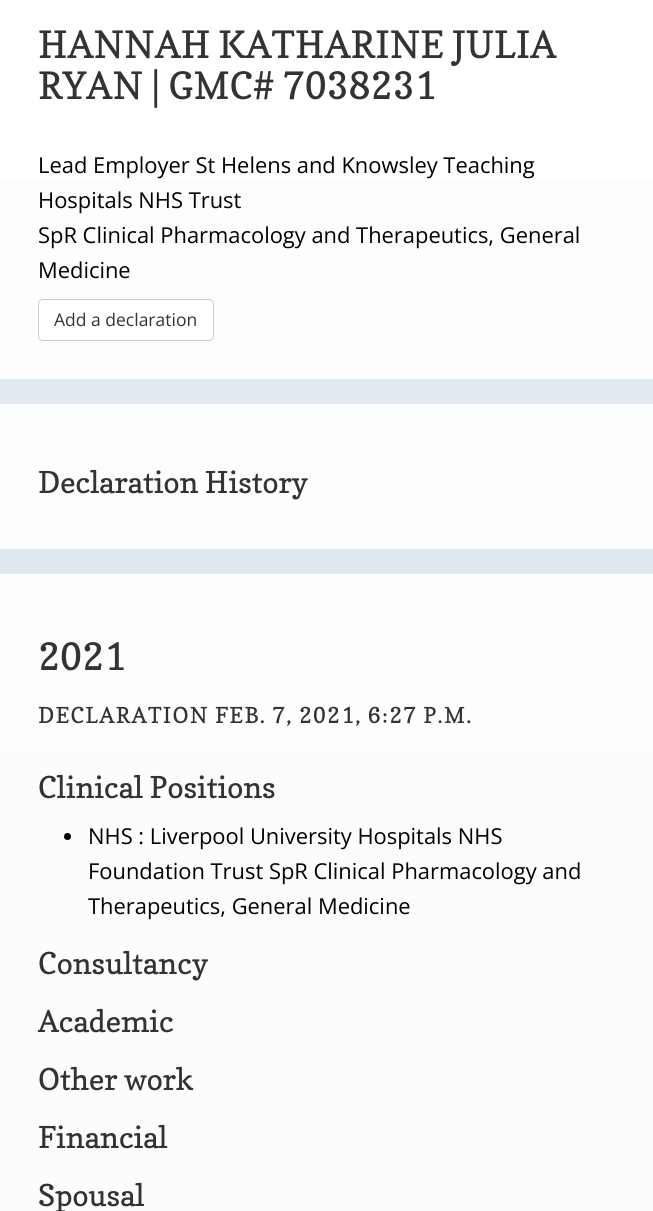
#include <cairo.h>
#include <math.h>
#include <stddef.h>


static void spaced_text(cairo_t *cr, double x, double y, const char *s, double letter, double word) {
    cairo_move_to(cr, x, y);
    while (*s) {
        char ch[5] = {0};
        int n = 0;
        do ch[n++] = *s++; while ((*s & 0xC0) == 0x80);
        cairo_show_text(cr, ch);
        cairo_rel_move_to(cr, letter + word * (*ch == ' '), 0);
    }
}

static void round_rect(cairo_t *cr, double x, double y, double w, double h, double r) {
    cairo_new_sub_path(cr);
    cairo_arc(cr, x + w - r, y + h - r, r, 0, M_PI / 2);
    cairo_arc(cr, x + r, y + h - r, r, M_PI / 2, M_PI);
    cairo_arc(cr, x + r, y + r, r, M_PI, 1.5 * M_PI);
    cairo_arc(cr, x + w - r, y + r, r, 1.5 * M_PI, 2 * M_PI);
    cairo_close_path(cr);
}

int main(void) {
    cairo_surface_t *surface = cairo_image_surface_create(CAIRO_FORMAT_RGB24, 653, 1211);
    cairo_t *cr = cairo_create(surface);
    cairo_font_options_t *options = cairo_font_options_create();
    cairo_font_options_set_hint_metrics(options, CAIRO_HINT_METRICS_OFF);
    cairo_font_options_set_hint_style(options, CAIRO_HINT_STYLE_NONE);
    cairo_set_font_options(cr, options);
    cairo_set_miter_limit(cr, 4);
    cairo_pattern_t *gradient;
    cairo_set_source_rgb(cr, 1, 1, 1);
    cairo_paint(cr);
    gradient = cairo_pattern_create_linear(327, -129, 327, 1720);
    cairo_pattern_add_color_stop_rgba(gradient, 0, 0.925, 0.945, 0.969, 1);
    cairo_pattern_add_color_stop_rgba(gradient, 1, 0.792, 0.843, 0.898, 1);
    cairo_set_source(cr, gradient);
    cairo_pattern_destroy(gradient);
    cairo_rectangle(cr, 0, 379, 653, 195);
    cairo_fill(cr);
    gradient = cairo_pattern_create_linear(327, -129, 327, 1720);
    cairo_pattern_add_color_stop_rgba(gradient, 0, 0.992, 0.996, 0.996, 1);
    cairo_pattern_add_color_stop_rgba(gradient, 1, 0.98, 0.984, 0.988, 1);
    cairo_set_source(cr, gradient);
    cairo_pattern_destroy(gradient);
    cairo_rectangle(cr, 0, 574, 653, 637);
    cairo_fill(cr);
    cairo_rectangle(cr, 0, 179, 653, 200);
    cairo_fill(cr);
    cairo_select_font_face(cr, "Copse", CAIRO_FONT_SLANT_NORMAL, CAIRO_FONT_WEIGHT_NORMAL);
    cairo_set_font_size(cr, 37.5);
    cairo_set_source_rgb(cr, 0.2, 0.2, 0.2);
    cairo_move_to(cr, 38, 58);
    cairo_show_text(cr, "HANNAH KATHARINE JULIA");
    cairo_move_to(cr, 38, 99);
    cairo_show_text(cr, "RYAN | GMC# 7038231");
    cairo_select_font_face(cr, "Open Sans", CAIRO_FONT_SLANT_NORMAL, CAIRO_FONT_WEIGHT_NORMAL);
    cairo_set_font_size(cr, 21.9);
    cairo_set_source_rgb(cr, 0, 0, 0);
    cairo_move_to(cr, 38, 173);
    cairo_show_text(cr, "Lead Employer St Helens and Knowsley Teaching");
    cairo_move_to(cr, 38, 208);
    cairo_show_text(cr, "Hospitals NHS Trust");
    cairo_move_to(cr, 38, 243);
    cairo_show_text(cr, "SpR Clinical Pharmacology and Therapeutics, General");
    cairo_move_to(cr, 38, 278);
    cairo_show_text(cr, "Medicine");
    cairo_set_source_rgb(cr, 1, 1, 1);
    round_rect(cr, 38.5, 299.5, 175, 41, 4.5);
    cairo_fill_preserve(cr);
    cairo_set_source_rgb(cr, 0.8, 0.8, 0.8);
    cairo_set_line_width(cr, 1);
    cairo_stroke(cr);
    cairo_set_font_size(cr, 17.5);
    cairo_set_source_rgb(cr, 0.2, 0.2, 0.2);
    cairo_move_to(cr, 54, 326);
    cairo_show_text(cr, "Add a declaration");
    cairo_set_source_rgb(cr, 0.988, 0.992, 0.996);
    cairo_rectangle(cr, 0, 404, 653, 145);
    cairo_fill(cr);
    cairo_select_font_face(cr, "Copse", CAIRO_FONT_SLANT_NORMAL, CAIRO_FONT_WEIGHT_NORMAL);
    cairo_set_font_size(cr, 30);
    cairo_set_source_rgb(cr, 0.2, 0.2, 0.2);
    cairo_move_to(cr, 38, 493);
    cairo_show_text(cr, "Declaration History");
    cairo_set_font_size(cr, 37.5);
    cairo_move_to(cr, 38, 670);
    cairo_show_text(cr, "2021");
    cairo_set_font_size(cr, 21.9);
    spaced_text(cr, 38, 723, "DECLARATION FEB. 7, 2021, 6:27 P.M.", 1.25, 0);
    cairo_set_font_size(cr, 30);
    cairo_move_to(cr, 38, 798);
    cairo_show_text(cr, "Clinical Positions");
    cairo_set_source_rgb(cr, 0, 0, 0);
    cairo_new_path(cr);
    cairo_arc(cr, 67.5, 836.5, 3.5, 0, 2 * M_PI);
    cairo_fill(cr);
    cairo_select_font_face(cr, "Open Sans", CAIRO_FONT_SLANT_NORMAL, CAIRO_FONT_WEIGHT_NORMAL);
    cairo_set_font_size(cr, 21.9);
    cairo_move_to(cr, 88, 844);
    cairo_show_text(cr, "NHS : Liverpool University Hospitals NHS");
    cairo_move_to(cr, 88, 879);
    cairo_show_text(cr, "Foundation Trust SpR Clinical Pharmacology and");
    cairo_move_to(cr, 88, 914);
    cairo_show_text(cr, "Therapeutics, General Medicine");
    cairo_select_font_face(cr, "Copse", CAIRO_FONT_SLANT_NORMAL, CAIRO_FONT_WEIGHT_NORMAL);
    cairo_set_font_size(cr, 30);
    cairo_set_source_rgb(cr, 0.2, 0.2, 0.2);
    cairo_move_to(cr, 38, 974);
    cairo_show_text(cr, "Consultancy");
    cairo_move_to(cr, 38, 1032);
    cairo_show_text(cr, "Academic");
    cairo_move_to(cr, 38, 1090);
    cairo_show_text(cr, "Other work");
    cairo_move_to(cr, 38, 1148);
    cairo_show_text(cr, "Financial");
    cairo_move_to(cr, 38, 1206);
    cairo_show_text(cr, "Spousal");
    cairo_surface_write_to_png(surface, "page.png");
    cairo_font_options_destroy(options);
    cairo_destroy(cr);
    cairo_surface_destroy(surface);
    return 0;
}
